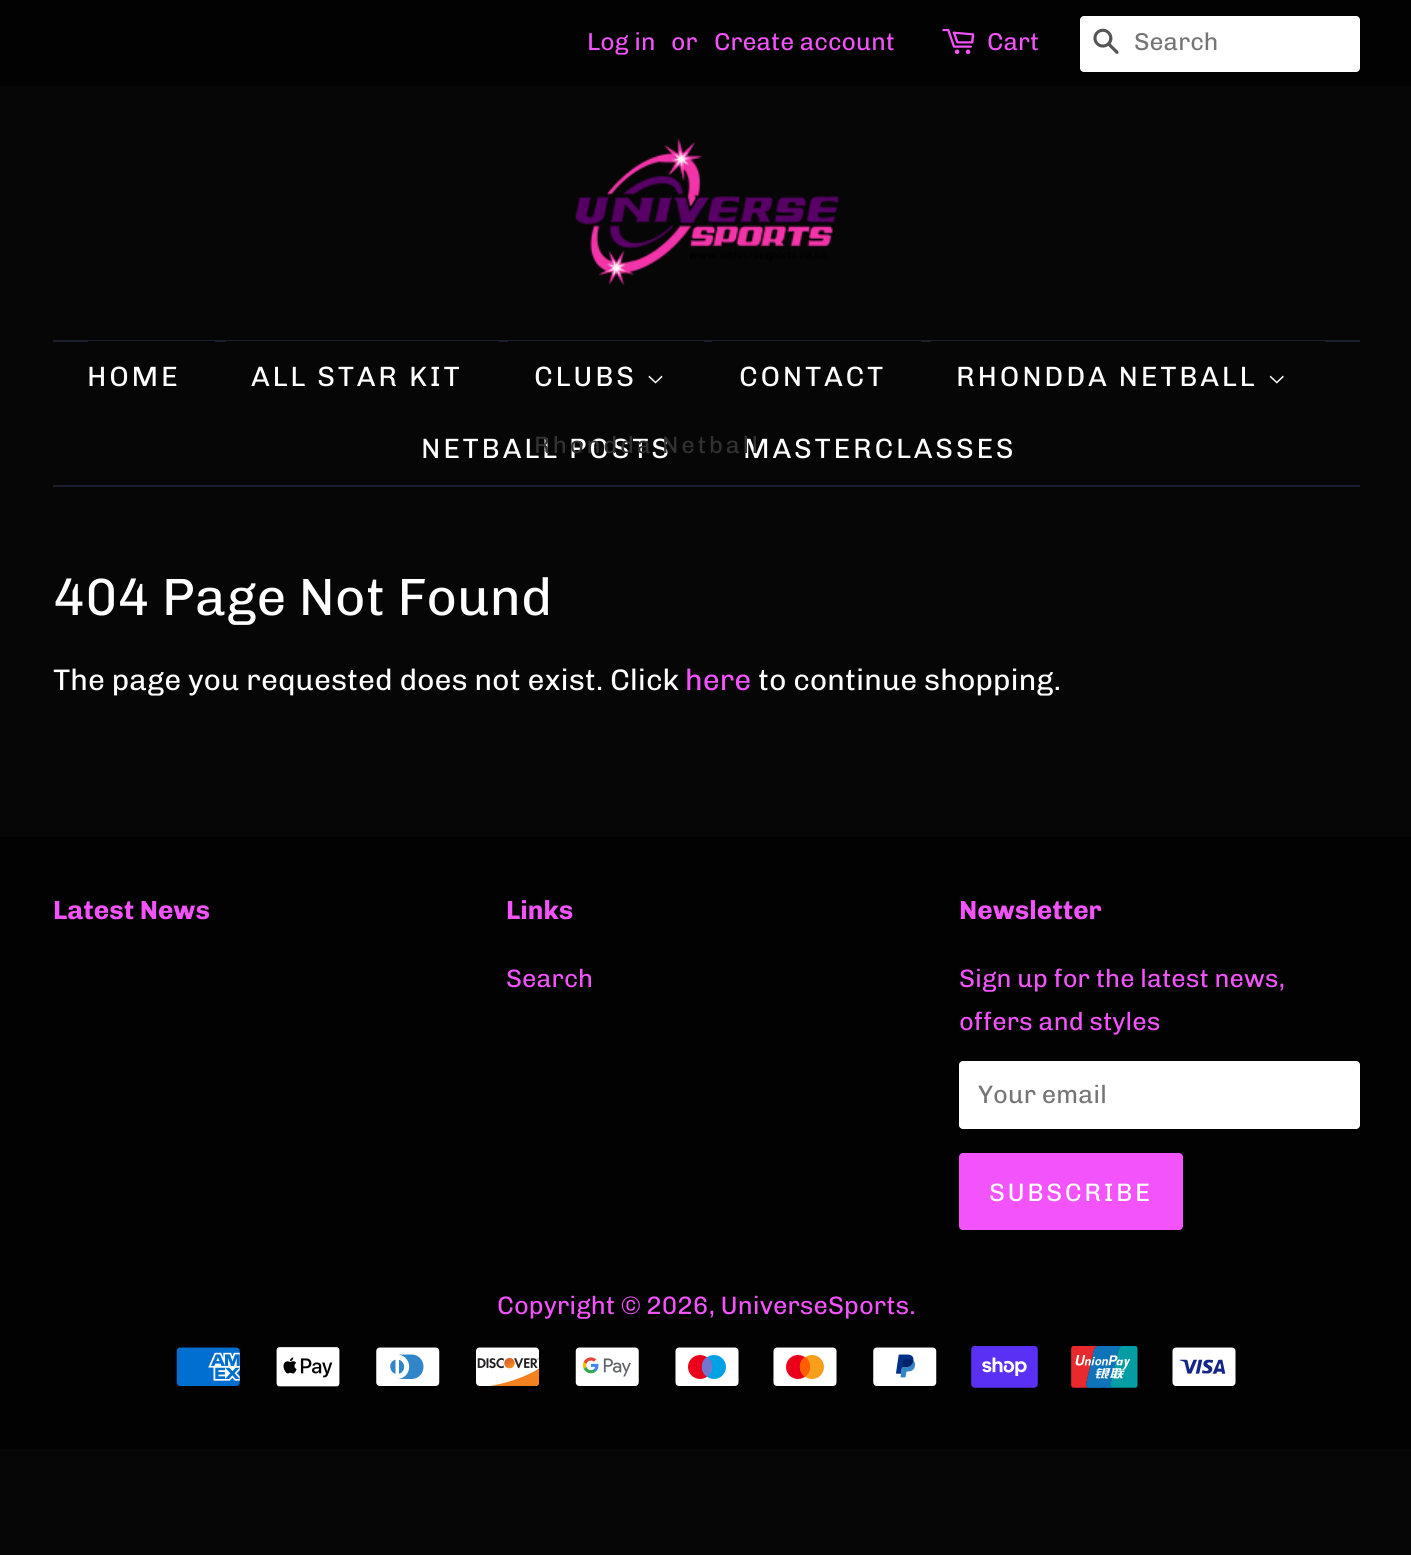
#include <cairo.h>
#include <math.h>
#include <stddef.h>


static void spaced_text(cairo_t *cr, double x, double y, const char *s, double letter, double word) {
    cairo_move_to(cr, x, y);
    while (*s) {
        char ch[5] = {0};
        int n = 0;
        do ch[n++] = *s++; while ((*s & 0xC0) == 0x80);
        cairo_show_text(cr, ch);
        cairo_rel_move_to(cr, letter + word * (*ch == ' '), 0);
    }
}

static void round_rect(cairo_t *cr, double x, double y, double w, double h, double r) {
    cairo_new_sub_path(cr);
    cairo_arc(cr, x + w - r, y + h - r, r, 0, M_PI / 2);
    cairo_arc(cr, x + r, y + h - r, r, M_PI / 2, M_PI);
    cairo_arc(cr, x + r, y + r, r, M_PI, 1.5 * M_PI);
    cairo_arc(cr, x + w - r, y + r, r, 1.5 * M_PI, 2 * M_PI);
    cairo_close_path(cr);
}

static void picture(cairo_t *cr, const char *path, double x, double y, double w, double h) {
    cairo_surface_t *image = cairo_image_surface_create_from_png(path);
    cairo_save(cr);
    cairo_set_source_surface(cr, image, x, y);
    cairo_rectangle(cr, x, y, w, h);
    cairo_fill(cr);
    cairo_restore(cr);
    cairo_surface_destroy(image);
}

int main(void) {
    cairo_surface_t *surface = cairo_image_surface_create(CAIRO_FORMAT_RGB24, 1411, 1555);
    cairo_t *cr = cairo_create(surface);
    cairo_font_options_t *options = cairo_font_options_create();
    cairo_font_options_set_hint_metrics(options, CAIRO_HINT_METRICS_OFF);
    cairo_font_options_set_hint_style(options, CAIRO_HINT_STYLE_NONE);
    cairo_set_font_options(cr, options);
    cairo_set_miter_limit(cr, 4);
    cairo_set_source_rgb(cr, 0.024, 0.024, 0.024);
    cairo_paint(cr);
    cairo_set_source_rgb(cr, 0.008, 0.008, 0.008);
    cairo_rectangle(cr, 0, 0, 1411, 86);
    cairo_fill(cr);
    cairo_select_font_face(cr, "Chivo", CAIRO_FONT_SLANT_NORMAL, CAIRO_FONT_WEIGHT_NORMAL);
    cairo_set_font_size(cr, 24.5);
    cairo_set_source_rgb(cr, 0.953, 0.325, 0.984);
    cairo_move_to(cr, 587, 50);
    cairo_show_text(cr, "Log in");
    cairo_move_to(cr, 671, 50);
    cairo_show_text(cr, "or");
    cairo_move_to(cr, 714, 50);
    cairo_show_text(cr, "Create account");
    picture(cr, "img1.png", 942, 29, 33, 26);
    cairo_move_to(cr, 987, 50);
    cairo_show_text(cr, "Cart");
    cairo_set_source_rgb(cr, 1, 1, 1);
    round_rect(cr, 1080, 16, 280, 56, 4);
    cairo_fill(cr);
    picture(cr, "img2.png", 1093, 28, 26, 26);
    cairo_set_source_rgb(cr, 0.459, 0.459, 0.459);
    cairo_move_to(cr, 1134, 50);
    cairo_show_text(cr, "Search");
    picture(cr, "img3.png", 575, 138, 264, 148);
    cairo_set_source_rgb(cr, 0.106, 0.118, 0.184);
    cairo_rectangle(cr, 53, 340, 1307, 2);
    cairo_fill(cr);
    cairo_rectangle(cr, 53, 485, 1307, 2);
    cairo_fill(cr);
    cairo_set_source_rgb(cr, 0.024, 0.024, 0.024);
    cairo_rectangle(cr, 88, 341, 127, 1);
    cairo_fill(cr);
    cairo_set_font_size(cr, 28);
    cairo_set_source_rgb(cr, 1, 1, 1);
    spaced_text(cr, 87, 386, "HOME", 2.75, 0);
    cairo_set_source_rgb(cr, 0.024, 0.024, 0.024);
    cairo_rectangle(cr, 226, 341, 273, 1);
    cairo_fill(cr);
    cairo_set_source_rgb(cr, 1, 1, 1);
    spaced_text(cr, 251, 386, "ALL STAR KIT", 2.75, 0);
    cairo_set_source_rgb(cr, 0.024, 0.024, 0.024);
    cairo_rectangle(cr, 508, 341, 196, 1);
    cairo_fill(cr);
    cairo_set_source_rgb(cr, 1, 1, 1);
    spaced_text(cr, 534, 386, "CLUBS", 2.75, 0);
    picture(cr, "img4.png", 648, 375, 15, 9);
    spaced_text(cr, 421, 458, "NETBALL POSTS", 2.75, 0);
    spaced_text(cr, 743, 458, "MASTERCLASSES", 2.75, 0);
    cairo_set_font_size(cr, 23.75);
    cairo_set_source_rgb(cr, 0.196, 0.196, 0.196);
    spaced_text(cr, 534, 453, "Rhondda Netball", 2.75, 0);
    cairo_set_source_rgb(cr, 0.024, 0.024, 0.024);
    cairo_rectangle(cr, 712, 341, 209, 1);
    cairo_fill(cr);
    cairo_set_font_size(cr, 28);
    cairo_set_source_rgb(cr, 1, 1, 1);
    spaced_text(cr, 739, 386, "CONTACT", 2.75, 0);
    cairo_set_source_rgb(cr, 0.024, 0.024, 0.024);
    cairo_rectangle(cr, 931, 341, 394, 1);
    cairo_fill(cr);
    cairo_set_source_rgb(cr, 1, 1, 1);
    spaced_text(cr, 956, 386, "RHONDDA NETBALL", 2.75, 0);
    picture(cr, "img5.png", 1269, 375, 15, 9);
    cairo_set_font_size(cr, 52.5);
    cairo_move_to(cr, 53, 615);
    cairo_show_text(cr, "404 Page Not Found");
    cairo_set_font_size(cr, 29.75);
    cairo_move_to(cr, 53, 690);
    cairo_show_text(cr, "The page you requested does not exist. Click");
    cairo_set_source_rgb(cr, 0.953, 0.325, 0.984);
    cairo_move_to(cr, 685, 690);
    cairo_show_text(cr, "here");
    cairo_set_source_rgb(cr, 1, 1, 1);
    cairo_move_to(cr, 758, 690);
    cairo_show_text(cr, "to continue shopping.");
    cairo_set_source_rgb(cr, 0.008, 0.008, 0.008);
    cairo_rectangle(cr, 0, 837, 1411, 612);
    cairo_fill(cr);
    cairo_select_font_face(cr, "Chivo", CAIRO_FONT_SLANT_NORMAL, CAIRO_FONT_WEIGHT_BOLD);
    cairo_set_font_size(cr, 26.25);
    cairo_set_source_rgb(cr, 0.953, 0.325, 0.984);
    cairo_move_to(cr, 53, 919);
    cairo_show_text(cr, "Latest News");
    cairo_move_to(cr, 506, 919);
    cairo_show_text(cr, "Links");
    cairo_select_font_face(cr, "Chivo", CAIRO_FONT_SLANT_NORMAL, CAIRO_FONT_WEIGHT_NORMAL);
    cairo_set_font_size(cr, 25.25);
    cairo_move_to(cr, 506, 987);
    cairo_show_text(cr, "Search");
    cairo_select_font_face(cr, "Chivo", CAIRO_FONT_SLANT_NORMAL, CAIRO_FONT_WEIGHT_BOLD);
    cairo_set_font_size(cr, 26.25);
    cairo_move_to(cr, 959, 919);
    cairo_show_text(cr, "Newsletter");
    cairo_select_font_face(cr, "Chivo", CAIRO_FONT_SLANT_NORMAL, CAIRO_FONT_WEIGHT_NORMAL);
    cairo_set_font_size(cr, 25.25);
    cairo_move_to(cr, 959, 987);
    cairo_show_text(cr, "Sign up for the latest news,");
    cairo_move_to(cr, 959, 1030);
    cairo_show_text(cr, "offers and styles");
    cairo_set_source_rgb(cr, 1, 1, 1);
    round_rect(cr, 959, 1061, 401, 68, 4);
    cairo_fill(cr);
    round_rect(cr, 960, 1062, 399, 66, 3);
    cairo_set_source_rgba(cr, 1, 1, 1, 0.15);
    cairo_stroke(cr);
    cairo_set_source_rgb(cr, 0.459, 0.459, 0.459);
    cairo_move_to(cr, 978, 1103);
    cairo_show_text(cr, "Your email");
    cairo_set_source_rgb(cr, 0.953, 0.325, 0.984);
    round_rect(cr, 959, 1153, 224, 77, 4);
    cairo_fill(cr);
    cairo_set_source_rgb(cr, 1, 1, 1);
    spaced_text(cr, 989, 1201, "SUBSCRIBE", 2.5, 0);
    cairo_set_source_rgb(cr, 0.953, 0.325, 0.984);
    cairo_move_to(cr, 497, 1314);
    cairo_show_text(cr, "Copyright © 2026, UniverseSports.");
    picture(cr, "img6.png", 176, 1347, 64, 39);
    picture(cr, "img7.png", 276, 1347, 64, 40);
    picture(cr, "img8.png", 376, 1347, 64, 39);
    picture(cr, "img9.png", 476, 1347, 64, 39);
    picture(cr, "img10.png", 575, 1347, 64, 39);
    picture(cr, "img11.png", 675, 1347, 64, 39);
    picture(cr, "img12.png", 773, 1347, 64, 39);
    picture(cr, "img13.png", 873, 1347, 64, 39);
    picture(cr, "img14.png", 971, 1346, 67, 42);
    picture(cr, "img15.png", 1071, 1346, 67, 42);
    picture(cr, "img16.png", 1172, 1347, 64, 39);
    cairo_surface_write_to_png(surface, "page.png");
    cairo_font_options_destroy(options);
    cairo_destroy(cr);
    cairo_surface_destroy(surface);
    return 0;
}
